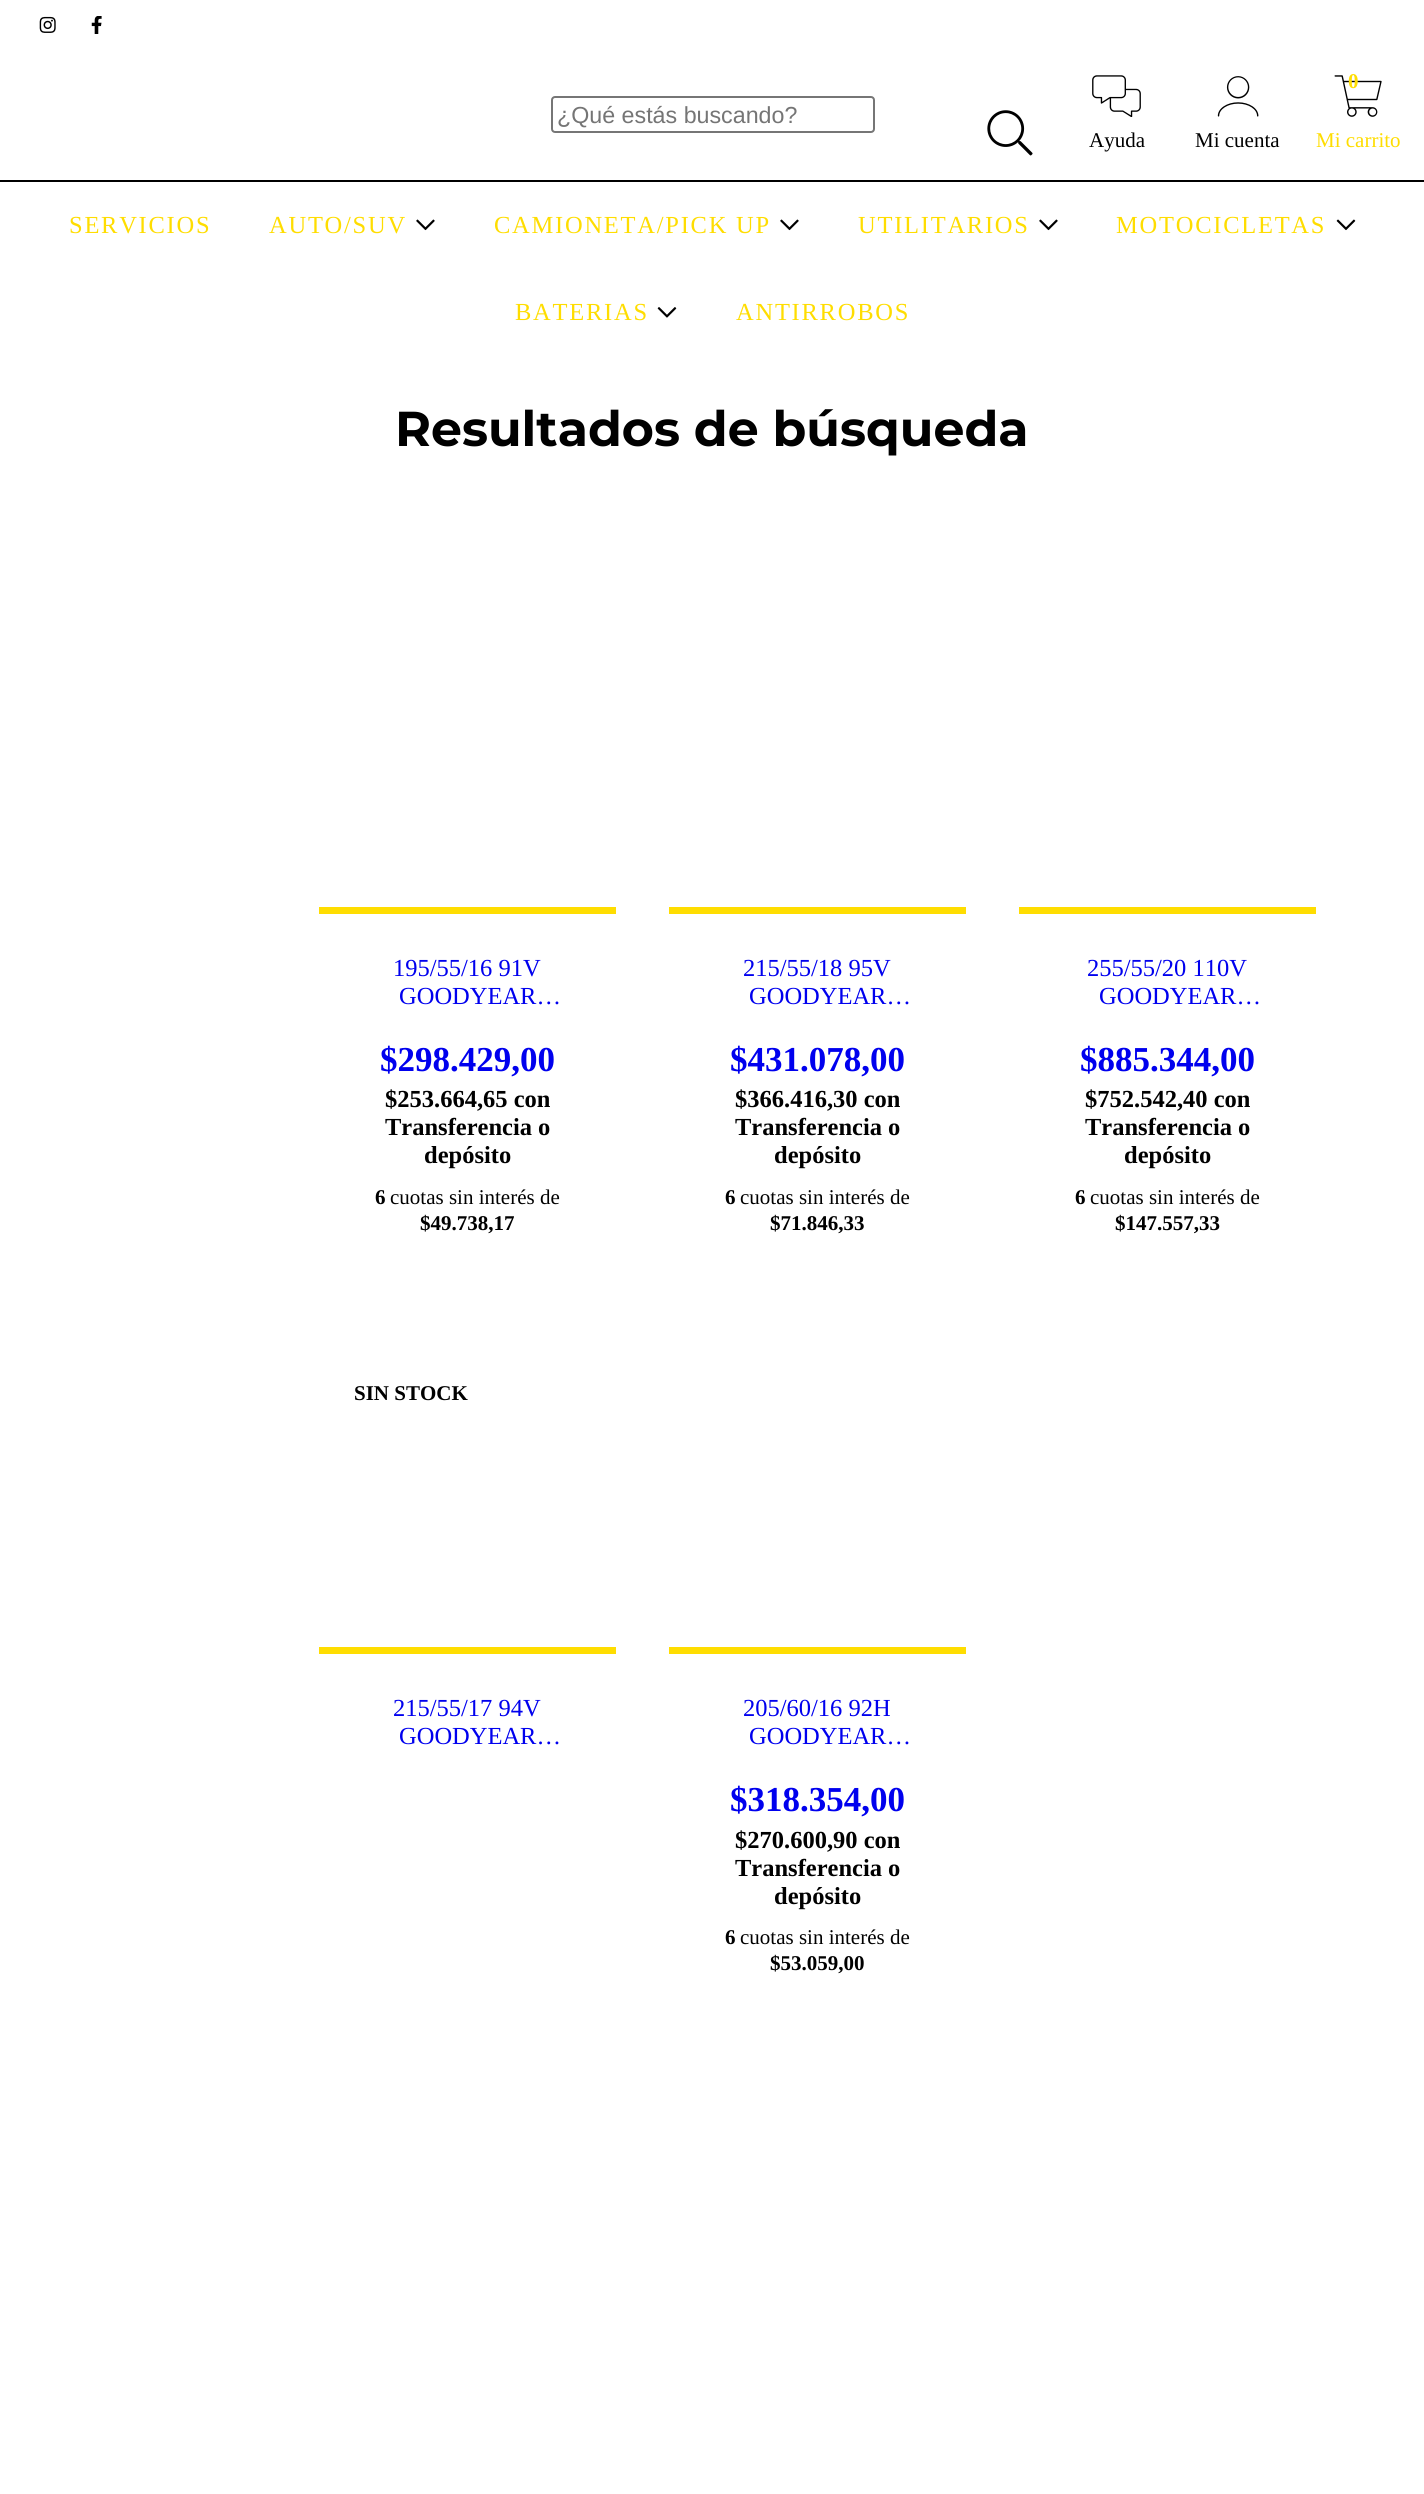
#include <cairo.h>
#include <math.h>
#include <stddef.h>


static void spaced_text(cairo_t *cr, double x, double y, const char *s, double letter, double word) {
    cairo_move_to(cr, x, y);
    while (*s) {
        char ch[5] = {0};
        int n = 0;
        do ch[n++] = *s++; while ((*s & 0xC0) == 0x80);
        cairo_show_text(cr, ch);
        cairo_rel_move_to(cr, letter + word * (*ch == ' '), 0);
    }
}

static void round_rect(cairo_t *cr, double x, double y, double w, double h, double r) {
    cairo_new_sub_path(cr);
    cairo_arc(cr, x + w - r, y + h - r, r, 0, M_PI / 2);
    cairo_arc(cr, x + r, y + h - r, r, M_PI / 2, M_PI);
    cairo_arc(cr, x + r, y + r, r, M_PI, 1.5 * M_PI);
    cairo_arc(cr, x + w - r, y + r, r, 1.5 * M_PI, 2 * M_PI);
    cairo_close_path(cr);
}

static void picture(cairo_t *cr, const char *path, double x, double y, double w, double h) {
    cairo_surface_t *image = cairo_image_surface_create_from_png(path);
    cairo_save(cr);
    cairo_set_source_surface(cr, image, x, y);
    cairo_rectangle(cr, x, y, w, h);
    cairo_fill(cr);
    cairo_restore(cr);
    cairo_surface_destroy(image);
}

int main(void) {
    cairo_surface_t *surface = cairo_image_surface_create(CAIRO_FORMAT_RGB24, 1424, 2494);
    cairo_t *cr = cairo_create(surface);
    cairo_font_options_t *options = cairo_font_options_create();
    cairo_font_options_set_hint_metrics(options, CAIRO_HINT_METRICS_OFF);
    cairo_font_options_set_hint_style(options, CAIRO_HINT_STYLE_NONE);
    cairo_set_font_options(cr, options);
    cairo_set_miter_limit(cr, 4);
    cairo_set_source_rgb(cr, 1, 1, 1);
    cairo_paint(cr);
    picture(cr, "img1.png", 39, 16, 17, 17);
    picture(cr, "img2.png", 91, 16, 11, 18);
    round_rect(cr, 552, 97, 322, 35, 3);
    cairo_set_source_rgb(cr, 0.463, 0.463, 0.463);
    cairo_stroke(cr);
    cairo_select_font_face(cr, "Liberation Sans", CAIRO_FONT_SLANT_NORMAL, CAIRO_FONT_WEIGHT_NORMAL);
    cairo_set_font_size(cr, 23.25);
    cairo_set_source_rgb(cr, 0.459, 0.459, 0.459);
    cairo_move_to(cr, 557, 123);
    cairo_show_text(cr, "¿Qué estás buscando?");
    picture(cr, "img3.png", 987, 110, 46, 46);
    picture(cr, "img4.png", 1092, 75, 49, 42);
    cairo_select_font_face(cr, "Liberation Serif", CAIRO_FONT_SLANT_NORMAL, CAIRO_FONT_WEIGHT_NORMAL);
    cairo_set_font_size(cr, 21);
    cairo_set_source_rgb(cr, 0, 0, 0);
    cairo_move_to(cr, 1089, 147);
    cairo_show_text(cr, "Ayuda");
    picture(cr, "img5.png", 1217, 76, 42, 41);
    cairo_move_to(cr, 1195, 147);
    cairo_show_text(cr, "Mi cuenta");
    picture(cr, "img6.png", 1334, 75, 48, 42);
    cairo_select_font_face(cr, "Liberation Serif", CAIRO_FONT_SLANT_NORMAL, CAIRO_FONT_WEIGHT_BOLD);
    cairo_set_source_rgb(cr, 1, 0.867, 0);
    cairo_move_to(cr, 1348, 88);
    cairo_show_text(cr, "0");
    cairo_select_font_face(cr, "Liberation Serif", CAIRO_FONT_SLANT_NORMAL, CAIRO_FONT_WEIGHT_NORMAL);
    cairo_move_to(cr, 1316, 147);
    cairo_show_text(cr, "Mi carrito");
    cairo_set_source_rgb(cr, 0, 0, 0);
    cairo_rectangle(cr, 0, 180, 1424, 2);
    cairo_fill(cr);
    cairo_set_font_size(cr, 24.5);
    cairo_set_source_rgb(cr, 1, 0.867, 0);
    spaced_text(cr, 69, 233, "SERVICIOS", 1.75, 0);
    spaced_text(cr, 269, 233, "AUTO/SUV", 1.75, 0);
    picture(cr, "img7.png", 416, 219, 19, 12);
    spaced_text(cr, 494, 233, "CAMIONETA/PICK UP", 1.75, 0);
    picture(cr, "img7.png", 780, 219, 19, 12);
    spaced_text(cr, 858, 233, "UTILITARIOS", 1.75, 0);
    picture(cr, "img7.png", 1039, 219, 19, 12);
    spaced_text(cr, 1116, 233, "MOTOCICLETAS", 1.75, 0);
    picture(cr, "img8.png", 1336, 219, 20, 12);
    spaced_text(cr, 515, 320, "BATERIAS", 1.75, 0);
    picture(cr, "img9.png", 657, 307, 20, 11);
    spaced_text(cr, 736, 320, "ANTIRROBOS", 1.75, 0);
    cairo_select_font_face(cr, "Montserrat", CAIRO_FONT_SLANT_NORMAL, CAIRO_FONT_WEIGHT_BOLD);
    cairo_set_font_size(cr, 49);
    cairo_set_source_rgb(cr, 0, 0, 0);
    cairo_move_to(cr, 395, 446);
    cairo_show_text(cr, "Resultados de búsqueda");
    cairo_set_source_rgb(cr, 1, 0.867, 0);
    cairo_rectangle(cr, 319, 907, 297, 7);
    cairo_fill(cr);
    cairo_select_font_face(cr, "Liberation Serif", CAIRO_FONT_SLANT_NORMAL, CAIRO_FONT_WEIGHT_NORMAL);
    cairo_set_font_size(cr, 24.5);
    cairo_set_source_rgb(cr, 0, 0, 0.933);
    cairo_move_to(cr, 393, 976);
    cairo_show_text(cr, "195/55/16 91V");
    cairo_move_to(cr, 399, 1004);
    cairo_show_text(cr, "GOODYEAR…");
    cairo_select_font_face(cr, "Liberation Serif", CAIRO_FONT_SLANT_NORMAL, CAIRO_FONT_WEIGHT_BOLD);
    cairo_set_font_size(cr, 35);
    cairo_move_to(cr, 380, 1071);
    cairo_show_text(cr, "$298.429,00");
    cairo_set_font_size(cr, 24.5);
    cairo_set_source_rgb(cr, 0, 0, 0);
    cairo_move_to(cr, 385, 1107);
    cairo_show_text(cr, "$253.664,65 con");
    cairo_move_to(cr, 385, 1135);
    cairo_show_text(cr, "Transferencia o");
    cairo_move_to(cr, 424, 1163);
    cairo_show_text(cr, "depósito");
    cairo_set_font_size(cr, 21);
    cairo_move_to(cr, 375, 1204);
    cairo_show_text(cr, "6");
    cairo_select_font_face(cr, "Liberation Serif", CAIRO_FONT_SLANT_NORMAL, CAIRO_FONT_WEIGHT_NORMAL);
    cairo_move_to(cr, 390, 1204);
    cairo_show_text(cr, "cuotas sin interés de");
    cairo_select_font_face(cr, "Liberation Serif", CAIRO_FONT_SLANT_NORMAL, CAIRO_FONT_WEIGHT_BOLD);
    cairo_move_to(cr, 420, 1230);
    cairo_show_text(cr, "$49.738,17");
    cairo_set_source_rgb(cr, 1, 0.867, 0);
    cairo_rectangle(cr, 669, 907, 297, 7);
    cairo_fill(cr);
    cairo_select_font_face(cr, "Liberation Serif", CAIRO_FONT_SLANT_NORMAL, CAIRO_FONT_WEIGHT_NORMAL);
    cairo_set_font_size(cr, 24.5);
    cairo_set_source_rgb(cr, 0, 0, 0.933);
    cairo_move_to(cr, 743, 976);
    cairo_show_text(cr, "215/55/18 95V");
    cairo_move_to(cr, 749, 1004);
    cairo_show_text(cr, "GOODYEAR…");
    cairo_select_font_face(cr, "Liberation Serif", CAIRO_FONT_SLANT_NORMAL, CAIRO_FONT_WEIGHT_BOLD);
    cairo_set_font_size(cr, 35);
    cairo_move_to(cr, 730, 1071);
    cairo_show_text(cr, "$431.078,00");
    cairo_set_font_size(cr, 24.5);
    cairo_set_source_rgb(cr, 0, 0, 0);
    cairo_move_to(cr, 735, 1107);
    cairo_show_text(cr, "$366.416,30 con");
    cairo_move_to(cr, 735, 1135);
    cairo_show_text(cr, "Transferencia o");
    cairo_move_to(cr, 774, 1163);
    cairo_show_text(cr, "depósito");
    cairo_set_font_size(cr, 21);
    cairo_move_to(cr, 725, 1204);
    cairo_show_text(cr, "6");
    cairo_select_font_face(cr, "Liberation Serif", CAIRO_FONT_SLANT_NORMAL, CAIRO_FONT_WEIGHT_NORMAL);
    cairo_move_to(cr, 740, 1204);
    cairo_show_text(cr, "cuotas sin interés de");
    cairo_select_font_face(cr, "Liberation Serif", CAIRO_FONT_SLANT_NORMAL, CAIRO_FONT_WEIGHT_BOLD);
    cairo_move_to(cr, 770, 1230);
    cairo_show_text(cr, "$71.846,33");
    cairo_set_source_rgb(cr, 1, 0.867, 0);
    cairo_rectangle(cr, 1019, 907, 297, 7);
    cairo_fill(cr);
    cairo_select_font_face(cr, "Liberation Serif", CAIRO_FONT_SLANT_NORMAL, CAIRO_FONT_WEIGHT_NORMAL);
    cairo_set_font_size(cr, 24.5);
    cairo_set_source_rgb(cr, 0, 0, 0.933);
    cairo_move_to(cr, 1087, 976);
    cairo_show_text(cr, "255/55/20 110V");
    cairo_move_to(cr, 1099, 1004);
    cairo_show_text(cr, "GOODYEAR…");
    cairo_select_font_face(cr, "Liberation Serif", CAIRO_FONT_SLANT_NORMAL, CAIRO_FONT_WEIGHT_BOLD);
    cairo_set_font_size(cr, 35);
    cairo_move_to(cr, 1080, 1071);
    cairo_show_text(cr, "$885.344,00");
    cairo_set_font_size(cr, 24.5);
    cairo_set_source_rgb(cr, 0, 0, 0);
    cairo_move_to(cr, 1085, 1107);
    cairo_show_text(cr, "$752.542,40 con");
    cairo_move_to(cr, 1085, 1135);
    cairo_show_text(cr, "Transferencia o");
    cairo_move_to(cr, 1124, 1163);
    cairo_show_text(cr, "depósito");
    cairo_set_font_size(cr, 21);
    cairo_move_to(cr, 1075, 1204);
    cairo_show_text(cr, "6");
    cairo_select_font_face(cr, "Liberation Serif", CAIRO_FONT_SLANT_NORMAL, CAIRO_FONT_WEIGHT_NORMAL);
    cairo_move_to(cr, 1090, 1204);
    cairo_show_text(cr, "cuotas sin interés de");
    cairo_select_font_face(cr, "Liberation Serif", CAIRO_FONT_SLANT_NORMAL, CAIRO_FONT_WEIGHT_BOLD);
    cairo_move_to(cr, 1115, 1230);
    cairo_show_text(cr, "$147.557,33");
    cairo_move_to(cr, 354, 1400);
    cairo_show_text(cr, "SIN STOCK");
    cairo_set_source_rgb(cr, 1, 0.867, 0);
    cairo_rectangle(cr, 319, 1647, 297, 7);
    cairo_fill(cr);
    cairo_select_font_face(cr, "Liberation Serif", CAIRO_FONT_SLANT_NORMAL, CAIRO_FONT_WEIGHT_NORMAL);
    cairo_set_font_size(cr, 24.5);
    cairo_set_source_rgb(cr, 0, 0, 0.933);
    cairo_move_to(cr, 393, 1716);
    cairo_show_text(cr, "215/55/17 94V");
    cairo_move_to(cr, 399, 1744);
    cairo_show_text(cr, "GOODYEAR…");
    cairo_set_source_rgb(cr, 1, 0.867, 0);
    cairo_rectangle(cr, 669, 1647, 297, 7);
    cairo_fill(cr);
    cairo_set_source_rgb(cr, 0, 0, 0.933);
    cairo_move_to(cr, 743, 1716);
    cairo_show_text(cr, "205/60/16 92H");
    cairo_move_to(cr, 749, 1744);
    cairo_show_text(cr, "GOODYEAR…");
    cairo_select_font_face(cr, "Liberation Serif", CAIRO_FONT_SLANT_NORMAL, CAIRO_FONT_WEIGHT_BOLD);
    cairo_set_font_size(cr, 35);
    cairo_move_to(cr, 730, 1811);
    cairo_show_text(cr, "$318.354,00");
    cairo_set_font_size(cr, 24.5);
    cairo_set_source_rgb(cr, 0, 0, 0);
    cairo_move_to(cr, 735, 1848);
    cairo_show_text(cr, "$270.600,90 con");
    cairo_move_to(cr, 735, 1876);
    cairo_show_text(cr, "Transferencia o");
    cairo_move_to(cr, 774, 1904);
    cairo_show_text(cr, "depósito");
    cairo_set_font_size(cr, 21);
    cairo_move_to(cr, 725, 1944);
    cairo_show_text(cr, "6");
    cairo_select_font_face(cr, "Liberation Serif", CAIRO_FONT_SLANT_NORMAL, CAIRO_FONT_WEIGHT_NORMAL);
    cairo_move_to(cr, 740, 1944);
    cairo_show_text(cr, "cuotas sin interés de");
    cairo_select_font_face(cr, "Liberation Serif", CAIRO_FONT_SLANT_NORMAL, CAIRO_FONT_WEIGHT_BOLD);
    cairo_move_to(cr, 770, 1970);
    cairo_show_text(cr, "$53.059,00");
    cairo_surface_write_to_png(surface, "page.png");
    cairo_font_options_destroy(options);
    cairo_destroy(cr);
    cairo_surface_destroy(surface);
    return 0;
}
